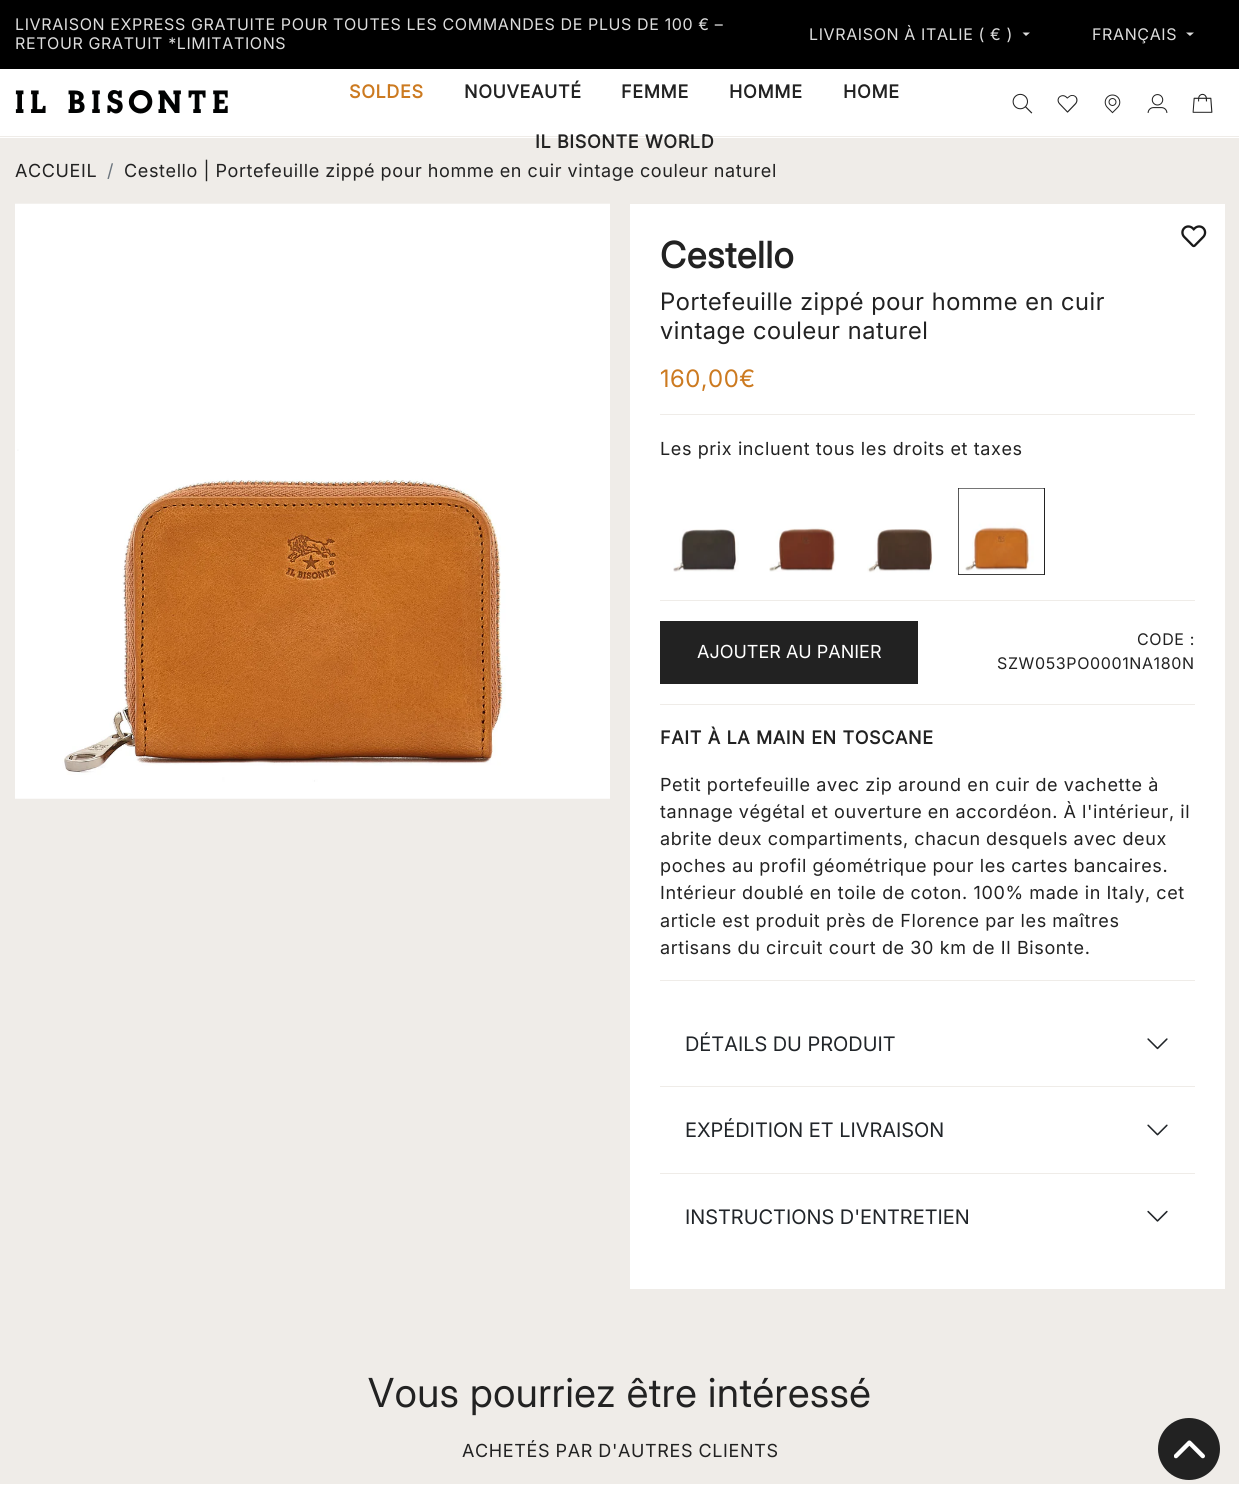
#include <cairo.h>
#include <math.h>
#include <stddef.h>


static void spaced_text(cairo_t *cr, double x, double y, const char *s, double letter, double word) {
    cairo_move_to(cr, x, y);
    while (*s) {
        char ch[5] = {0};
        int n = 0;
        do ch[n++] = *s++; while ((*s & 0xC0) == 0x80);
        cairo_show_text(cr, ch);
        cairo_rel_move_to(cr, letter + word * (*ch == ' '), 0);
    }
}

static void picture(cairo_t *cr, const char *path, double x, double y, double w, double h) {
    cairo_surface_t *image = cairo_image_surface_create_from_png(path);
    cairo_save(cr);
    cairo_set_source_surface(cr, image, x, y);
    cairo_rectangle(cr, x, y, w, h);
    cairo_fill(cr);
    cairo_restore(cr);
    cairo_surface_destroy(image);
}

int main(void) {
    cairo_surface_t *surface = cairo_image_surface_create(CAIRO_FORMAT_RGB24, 1239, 1499);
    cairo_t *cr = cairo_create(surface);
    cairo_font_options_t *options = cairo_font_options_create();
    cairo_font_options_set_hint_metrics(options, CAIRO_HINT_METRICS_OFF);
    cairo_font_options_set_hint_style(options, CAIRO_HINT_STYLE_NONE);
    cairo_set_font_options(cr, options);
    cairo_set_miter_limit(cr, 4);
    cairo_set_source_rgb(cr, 1, 1, 1);
    cairo_paint(cr);
    cairo_set_source_rgb(cr, 0, 0, 0);
    cairo_rectangle(cr, 0, 0, 1239, 69);
    cairo_fill(cr);
    cairo_select_font_face(cr, "Inter", CAIRO_FONT_SLANT_NORMAL, CAIRO_FONT_WEIGHT_NORMAL);
    cairo_set_font_size(cr, 16);
    cairo_set_source_rgb(cr, 0.867, 0.867, 0.867);
    spaced_text(cr, 15, 30, "LIVRAISON EXPRESS GRATUITE POUR TOUTES LES COMMANDES DE PLUS DE 100 € –", 0.62, 0);
    spaced_text(cr, 15, 49, "RETOUR GRATUIT *LIMITATIONS", 0.62, 0);
    spaced_text(cr, 809, 40, "LIVRAISON À ITALIE ( € )", 0.62, 0);
    cairo_new_path(cr);
    cairo_move_to(cr, 1022.5, 32.5);
    cairo_line_to(cr, 1030, 32.5);
    cairo_line_to(cr, 1026, 36);
    cairo_close_path(cr);
    cairo_fill(cr);
    spaced_text(cr, 1092, 40, "FRANÇAIS", 0.62, 0);
    cairo_new_path(cr);
    cairo_move_to(cr, 1186, 32.5);
    cairo_line_to(cr, 1194, 32.5);
    cairo_line_to(cr, 1190, 36);
    cairo_close_path(cr);
    cairo_fill(cr);
    cairo_set_source_rgb(cr, 0.937, 0.922, 0.91);
    cairo_rectangle(cr, 0, 136, 1239, 1);
    cairo_fill(cr);
    picture(cr, "img1.png", 15, 90, 213, 24);
    cairo_select_font_face(cr, "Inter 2", CAIRO_FONT_SLANT_NORMAL, CAIRO_FONT_WEIGHT_BOLD);
    cairo_set_font_size(cr, 18);
    cairo_set_source_rgb(cr, 0.8, 0.478, 0.125);
    spaced_text(cr, 349, 98, "SOLDES", 0.62, 0);
    cairo_set_source_rgb(cr, 0.133, 0.133, 0.133);
    spaced_text(cr, 464, 98, "NOUVEAUTÉ", 0.62, 0);
    spaced_text(cr, 621, 98, "FEMME", 0.62, 0);
    spaced_text(cr, 729, 98, "HOMME", 0.62, 0);
    spaced_text(cr, 843, 98, "HOME", 0.62, 0);
    cairo_set_source_rgb(cr, 0.937, 0.922, 0.91);
    cairo_rectangle(cr, 0, 138, 1239, 1346);
    cairo_fill(cr);
    cairo_set_source_rgb(cr, 0.133, 0.133, 0.133);
    spaced_text(cr, 535, 148, "IL BISONTE WORLD", 0.62, 0);
    picture(cr, "img2.png", 1012, 93, 21, 21);
    picture(cr, "img3.png", 1057, 95, 21, 18);
    picture(cr, "img4.png", 1104, 94, 17, 20);
    picture(cr, "img5.png", 1147, 94, 21, 19);
    picture(cr, "img6.png", 1192, 93, 21, 20);
    cairo_select_font_face(cr, "Inter", CAIRO_FONT_SLANT_NORMAL, CAIRO_FONT_WEIGHT_NORMAL);
    spaced_text(cr, 15, 177, "ACCUEIL", 0.62, 0);
    cairo_set_source_rgb(cr, 0.424, 0.459, 0.49);
    spaced_text(cr, 107, 177, "/", 0.62, 0);
    cairo_set_source_rgb(cr, 0.133, 0.133, 0.133);
    spaced_text(cr, 124, 177, "Cestello | Portefeuille zippé pour homme en cuir vintage couleur naturel", 0.62, -0.25);
    picture(cr, "img7.png", 15, 203, 595, 596);
    cairo_set_source_rgb(cr, 1, 1, 1);
    cairo_rectangle(cr, 630, 204, 595, 1085);
    cairo_fill(cr);
    picture(cr, "img8.png", 1181, 225, 26, 23);
    cairo_select_font_face(cr, "Inter", CAIRO_FONT_SLANT_NORMAL, CAIRO_FONT_WEIGHT_BOLD);
    cairo_set_font_size(cr, 36);
    cairo_set_source_rgb(cr, 0.133, 0.133, 0.133);
    spaced_text(cr, 660, 268, "Cestello", 0.62, 0);
    cairo_select_font_face(cr, "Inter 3", CAIRO_FONT_SLANT_NORMAL, CAIRO_FONT_WEIGHT_NORMAL);
    cairo_set_font_size(cr, 24);
    spaced_text(cr, 660, 310, "Portefeuille zippé pour homme en cuir", 0.62, 0);
    spaced_text(cr, 660, 339, "vintage couleur naturel", 0.62, 0);
    cairo_set_source_rgb(cr, 0.8, 0.478, 0.125);
    spaced_text(cr, 660, 387, "160,00€", 0.62, 0);
    cairo_set_source_rgb(cr, 0.937, 0.922, 0.91);
    cairo_rectangle(cr, 660, 414, 535, 1);
    cairo_fill(cr);
    cairo_select_font_face(cr, "Inter", CAIRO_FONT_SLANT_NORMAL, CAIRO_FONT_WEIGHT_NORMAL);
    cairo_set_font_size(cr, 18);
    cairo_set_source_rgb(cr, 0.133, 0.133, 0.133);
    spaced_text(cr, 660, 455, "Les prix incluent tous les droits et taxes", 0.62, 0);
    picture(cr, "img9.png", 673, 529, 66, 43);
    picture(cr, "img10.png", 769, 527, 67, 45);
    picture(cr, "img11.png", 867, 529, 66, 44);
    cairo_rectangle(cr, 958.5, 488.5, 86, 86);
    cairo_set_line_width(cr, 1);
    cairo_stroke(cr);
    picture(cr, "img12.png", 958, 488, 86, 87);
    cairo_set_source_rgb(cr, 0.937, 0.922, 0.91);
    cairo_rectangle(cr, 660, 600, 535, 1);
    cairo_fill(cr);
    cairo_set_source_rgb(cr, 0.133, 0.133, 0.133);
    cairo_rectangle(cr, 660, 621, 258, 63);
    cairo_fill(cr);
    cairo_set_source_rgb(cr, 1, 1, 1);
    cairo_move_to(cr, 697, 658);
    cairo_show_text(cr, "AJOUTER AU PANIER");
    cairo_set_font_size(cr, 16);
    cairo_set_source_rgb(cr, 0.133, 0.133, 0.133);
    spaced_text(cr, 1137, 645, "CODE :", 0.62, 0);
    spaced_text(cr, 997, 669, "SZW053PO0001NA180N", 0.62, 0);
    cairo_set_source_rgb(cr, 0.937, 0.922, 0.91);
    cairo_rectangle(cr, 660, 704, 535, 1);
    cairo_fill(cr);
    cairo_select_font_face(cr, "Inter 2", CAIRO_FONT_SLANT_NORMAL, CAIRO_FONT_WEIGHT_BOLD);
    cairo_set_font_size(cr, 18);
    cairo_set_source_rgb(cr, 0.133, 0.133, 0.133);
    spaced_text(cr, 660, 744, "FAIT À LA MAIN EN TOSCANE", 0.62, 0);
    cairo_select_font_face(cr, "Inter", CAIRO_FONT_SLANT_NORMAL, CAIRO_FONT_WEIGHT_NORMAL);
    spaced_text(cr, 660, 791, "Petit portefeuille avec zip around en cuir de vachette à", 0.62, -0.1);
    spaced_text(cr, 660, 818, "tannage végétal et ouverture en accordéon. À l'intérieur, il", 0.62, -0.25);
    spaced_text(cr, 660, 845, "abrite deux compartiments, chacun desquels avec deux", 0.62, -0.25);
    spaced_text(cr, 660, 872, "poches au profil géométrique pour les cartes bancaires.", 0.62, -0.25);
    spaced_text(cr, 660, 899, "Intérieur doublé en toile de coton. 100% made in Italy, cet", 0.62, -0.1);
    spaced_text(cr, 660, 927, "article est produit près de Florence par les maîtres", 0.62, -0.1);
    spaced_text(cr, 660, 954, "artisans du circuit court de 30 km de Il Bisonte.", 0.62, 0);
    cairo_set_source_rgb(cr, 0.937, 0.922, 0.91);
    cairo_rectangle(cr, 660, 980, 535, 1);
    cairo_fill(cr);
    cairo_rectangle(cr, 660, 1086, 535, 1);
    cairo_fill(cr);
    cairo_select_font_face(cr, "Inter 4", CAIRO_FONT_SLANT_NORMAL, CAIRO_FONT_WEIGHT_NORMAL);
    cairo_set_font_size(cr, 20);
    cairo_set_source_rgb(cr, 0.129, 0.145, 0.161);
    cairo_move_to(cr, 685, 1051);
    cairo_show_text(cr, "DÉTAILS DU PRODUIT");
    picture(cr, "img13.png", 1147, 1038, 21, 12);
    cairo_set_source_rgb(cr, 0.937, 0.922, 0.91);
    cairo_rectangle(cr, 660, 1173, 535, 1);
    cairo_fill(cr);
    cairo_set_source_rgb(cr, 0.129, 0.145, 0.161);
    cairo_move_to(cr, 685, 1137);
    cairo_show_text(cr, "EXPÉDITION ET LIVRAISON");
    picture(cr, "img14.png", 1147, 1124, 21, 12);
    cairo_move_to(cr, 685, 1224);
    cairo_show_text(cr, "INSTRUCTIONS D'ENTRETIEN");
    picture(cr, "img15.png", 1147, 1210, 21, 12);
    cairo_select_font_face(cr, "Inter 2", CAIRO_FONT_SLANT_NORMAL, CAIRO_FONT_WEIGHT_NORMAL);
    cairo_set_font_size(cr, 40);
    cairo_set_source_rgb(cr, 0.133, 0.133, 0.133);
    spaced_text(cr, 368, 1407, "Vous pourriez être intéressé", 0.62, 0);
    cairo_select_font_face(cr, "Inter", CAIRO_FONT_SLANT_NORMAL, CAIRO_FONT_WEIGHT_NORMAL);
    cairo_set_font_size(cr, 18);
    spaced_text(cr, 462, 1457, "ACHETÉS PAR D'AUTRES CLIENTS", 0.62, -0.25);
    cairo_new_path(cr);
    cairo_arc(cr, 1189, 1449, 31, 0, 2 * M_PI);
    cairo_fill(cr);
    picture(cr, "img16.png", 1174, 1440, 31, 19);
    cairo_surface_write_to_png(surface, "page.png");
    cairo_font_options_destroy(options);
    cairo_destroy(cr);
    cairo_surface_destroy(surface);
    return 0;
}
